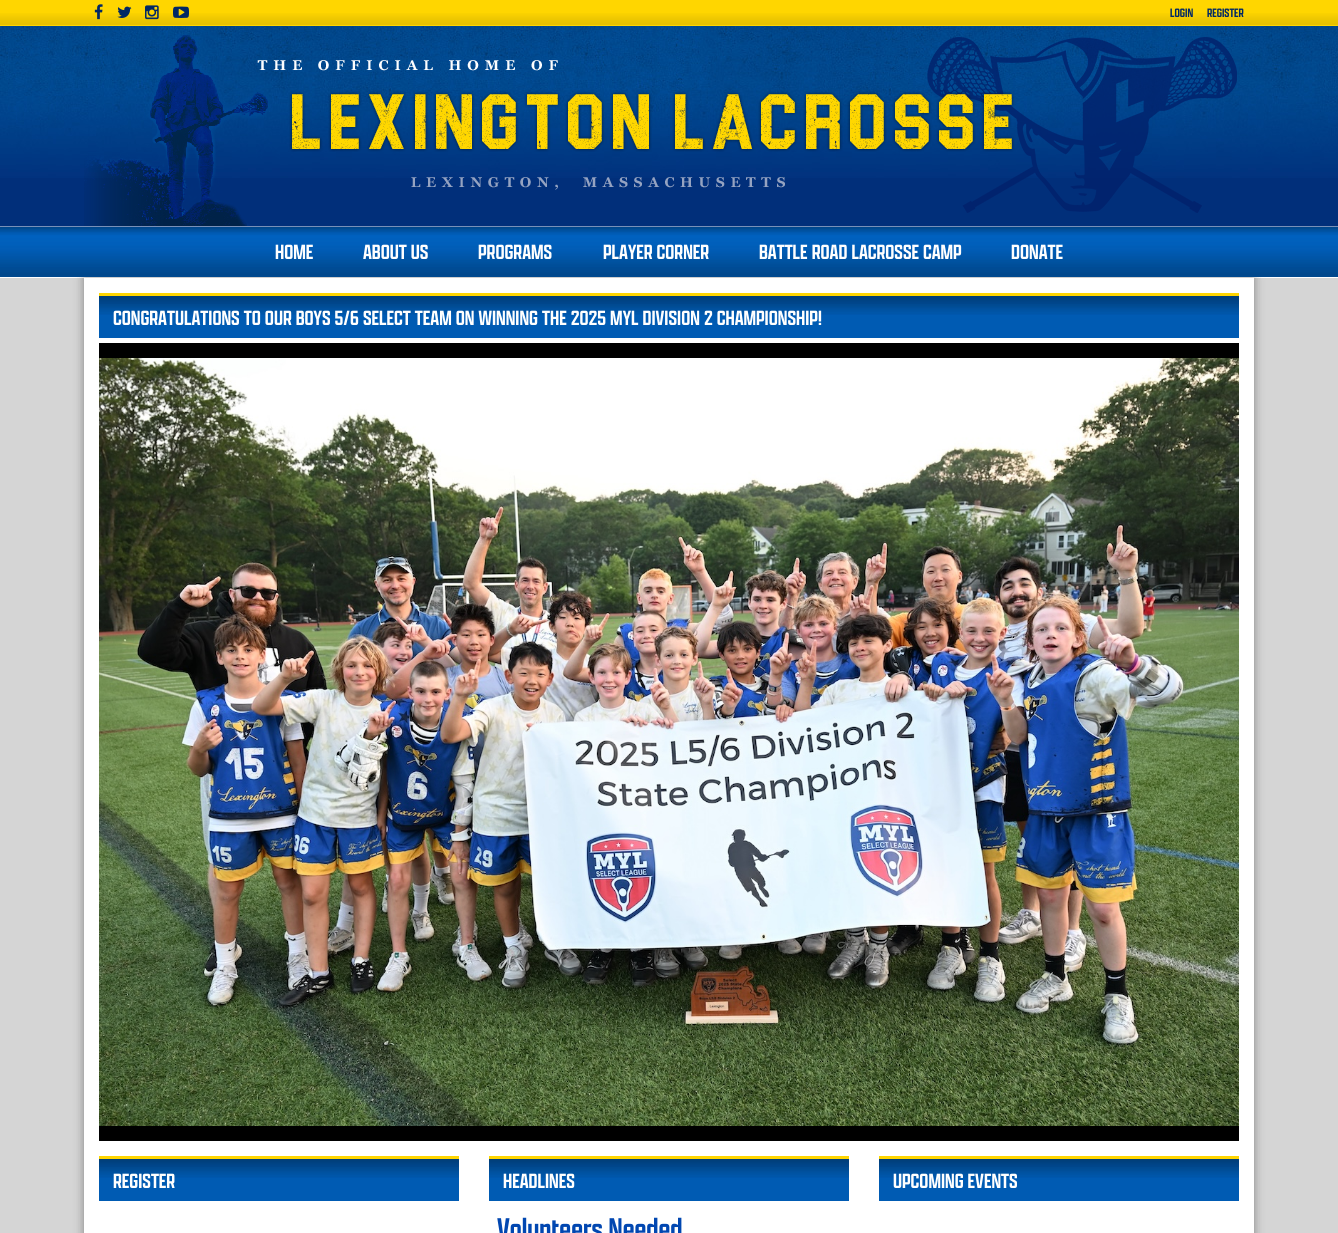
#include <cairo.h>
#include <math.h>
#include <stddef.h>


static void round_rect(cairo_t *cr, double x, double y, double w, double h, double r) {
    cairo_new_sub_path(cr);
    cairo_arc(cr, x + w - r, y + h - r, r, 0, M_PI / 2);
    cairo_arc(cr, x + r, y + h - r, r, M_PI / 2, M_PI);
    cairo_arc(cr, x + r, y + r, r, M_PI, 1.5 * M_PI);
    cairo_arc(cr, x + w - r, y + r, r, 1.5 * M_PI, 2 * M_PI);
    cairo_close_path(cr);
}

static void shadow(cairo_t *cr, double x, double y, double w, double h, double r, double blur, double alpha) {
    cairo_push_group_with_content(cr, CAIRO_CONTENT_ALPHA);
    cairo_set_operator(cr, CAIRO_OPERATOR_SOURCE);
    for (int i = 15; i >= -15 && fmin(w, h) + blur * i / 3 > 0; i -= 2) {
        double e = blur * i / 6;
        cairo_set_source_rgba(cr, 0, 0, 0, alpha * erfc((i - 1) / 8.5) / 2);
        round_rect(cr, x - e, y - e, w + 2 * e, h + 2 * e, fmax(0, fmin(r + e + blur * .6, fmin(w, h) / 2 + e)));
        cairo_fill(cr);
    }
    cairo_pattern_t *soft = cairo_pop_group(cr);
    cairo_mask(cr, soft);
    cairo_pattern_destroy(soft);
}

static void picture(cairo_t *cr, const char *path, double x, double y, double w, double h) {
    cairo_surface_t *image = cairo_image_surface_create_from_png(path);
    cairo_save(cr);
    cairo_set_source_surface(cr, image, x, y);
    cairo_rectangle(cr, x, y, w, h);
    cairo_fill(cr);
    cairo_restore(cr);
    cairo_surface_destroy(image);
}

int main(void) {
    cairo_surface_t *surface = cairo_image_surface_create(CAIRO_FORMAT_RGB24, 1338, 1233);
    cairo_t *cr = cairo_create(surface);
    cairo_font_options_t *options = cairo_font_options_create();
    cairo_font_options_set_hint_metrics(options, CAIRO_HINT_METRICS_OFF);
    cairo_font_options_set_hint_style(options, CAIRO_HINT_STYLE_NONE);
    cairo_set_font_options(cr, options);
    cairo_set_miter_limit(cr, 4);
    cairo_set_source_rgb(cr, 0.835, 0.835, 0.835);
    cairo_paint(cr);
    cairo_set_source_rgb(cr, 0.004, 0.184, 0.478);
    cairo_rectangle(cr, 0, 178, 1338, 48);
    cairo_fill(cr);
    picture(cr, "img1.png", 0, 26, 1338, 152);
    cairo_set_source_rgb(cr, 0.471, 0.565, 0.722);
    cairo_rectangle(cr, 0, 226, 1338, 1);
    cairo_fill(cr);
    cairo_set_source_rgb(cr, 1, 0.839, 0);
    cairo_rectangle(cr, 0, 0, 1338, 26);
    cairo_fill(cr);
    picture(cr, "img2.png", 0, 13, 1338, 12);
    picture(cr, "img3.png", 94, 4, 9, 16);
    picture(cr, "img4.png", 117, 6, 15, 12);
    picture(cr, "img5.png", 145, 5, 14, 15);
    picture(cr, "img6.png", 173, 6, 16, 12);
    cairo_select_font_face(cr, "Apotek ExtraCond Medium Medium", CAIRO_FONT_SLANT_NORMAL, CAIRO_FONT_WEIGHT_NORMAL);
    cairo_set_font_size(cr, 13);
    cairo_set_source_rgb(cr, 0.004, 0.157, 0.396);
    cairo_move_to(cr, 1170, 17);
    cairo_show_text(cr, "LOGIN");
    cairo_move_to(cr, 1207, 17);
    cairo_show_text(cr, "REGISTER");
    picture(cr, "img7.png", 84, 34, 1153, 192);
    cairo_set_source_rgb(cr, 1, 1, 1);
    cairo_rectangle(cr, 0, 277, 1338, 1);
    cairo_fill(cr);
    cairo_set_source_rgb(cr, 0, 0, 0);
    shadow(cr, 84, 278, 1170, 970, 0, 5, 0.4);
    picture(cr, "img8.png", 0, 227, 1338, 50);
    cairo_set_font_size(cr, 22);
    cairo_set_source_rgb(cr, 1, 1, 1);
    cairo_move_to(cr, 275, 259);
    cairo_show_text(cr, "HOME");
    cairo_move_to(cr, 363, 259);
    cairo_show_text(cr, "ABOUT US");
    cairo_move_to(cr, 478, 259);
    cairo_show_text(cr, "PROGRAMS");
    cairo_move_to(cr, 603, 259);
    cairo_show_text(cr, "PLAYER CORNER");
    cairo_move_to(cr, 759, 259);
    cairo_show_text(cr, "BATTLE ROAD LACROSSE CAMP");
    cairo_move_to(cr, 1011, 259);
    cairo_show_text(cr, "DONATE");
    cairo_rectangle(cr, 84, 278, 1170, 955);
    cairo_fill(cr);
    cairo_set_source_rgb(cr, 0, 0.357, 0.702);
    cairo_rectangle(cr, 99, 315, 1140, 23);
    cairo_fill(cr);
    picture(cr, "img9.png", 99, 296, 1140, 19);
    cairo_set_source_rgb(cr, 1, 0.835, 0);
    cairo_rectangle(cr, 99, 293, 1140, 3);
    cairo_fill(cr);
    cairo_set_source_rgb(cr, 1, 1, 1);
    cairo_move_to(cr, 113, 325);
    cairo_show_text(cr, "CONGRATULATIONS TO OUR BOYS 5/6 SELECT TEAM ON WINNING THE 2025 MYL DIVISION 2 CHAMPIONSHIP!");
    cairo_set_source_rgb(cr, 0, 0, 0);
    cairo_rectangle(cr, 99, 343, 1140, 798);
    cairo_fill(cr);
    picture(cr, "img10.png", 99, 358, 1140, 768);
    cairo_set_source_rgb(cr, 0, 0.357, 0.702);
    cairo_rectangle(cr, 99, 1178, 360, 23);
    cairo_fill(cr);
    picture(cr, "img11.png", 99, 1159, 360, 19);
    cairo_set_source_rgb(cr, 1, 0.835, 0);
    cairo_rectangle(cr, 99, 1156, 360, 3);
    cairo_fill(cr);
    cairo_set_source_rgb(cr, 1, 1, 1);
    cairo_move_to(cr, 113, 1188);
    cairo_show_text(cr, "REGISTER");
    cairo_set_source_rgb(cr, 0, 0.357, 0.702);
    cairo_rectangle(cr, 489, 1178, 360, 23);
    cairo_fill(cr);
    picture(cr, "img11.png", 489, 1159, 360, 19);
    cairo_set_source_rgb(cr, 1, 0.835, 0);
    cairo_rectangle(cr, 489, 1156, 360, 3);
    cairo_fill(cr);
    cairo_set_source_rgb(cr, 1, 1, 1);
    cairo_move_to(cr, 503, 1188);
    cairo_show_text(cr, "HEADLINES");
    cairo_set_font_size(cr, 32);
    cairo_set_source_rgb(cr, 0.004, 0.278, 0.694);
    cairo_move_to(cr, 497, 1239);
    cairo_show_text(cr, "Volunteers Needed");
    cairo_set_source_rgb(cr, 0, 0.357, 0.702);
    cairo_rectangle(cr, 879, 1178, 360, 23);
    cairo_fill(cr);
    picture(cr, "img11.png", 879, 1159, 360, 19);
    cairo_set_source_rgb(cr, 1, 0.835, 0);
    cairo_rectangle(cr, 879, 1156, 360, 3);
    cairo_fill(cr);
    cairo_set_font_size(cr, 22);
    cairo_set_source_rgb(cr, 1, 1, 1);
    cairo_move_to(cr, 893, 1188);
    cairo_show_text(cr, "UPCOMING EVENTS");
    cairo_surface_write_to_png(surface, "page.png");
    cairo_font_options_destroy(options);
    cairo_destroy(cr);
    cairo_surface_destroy(surface);
    return 0;
}
